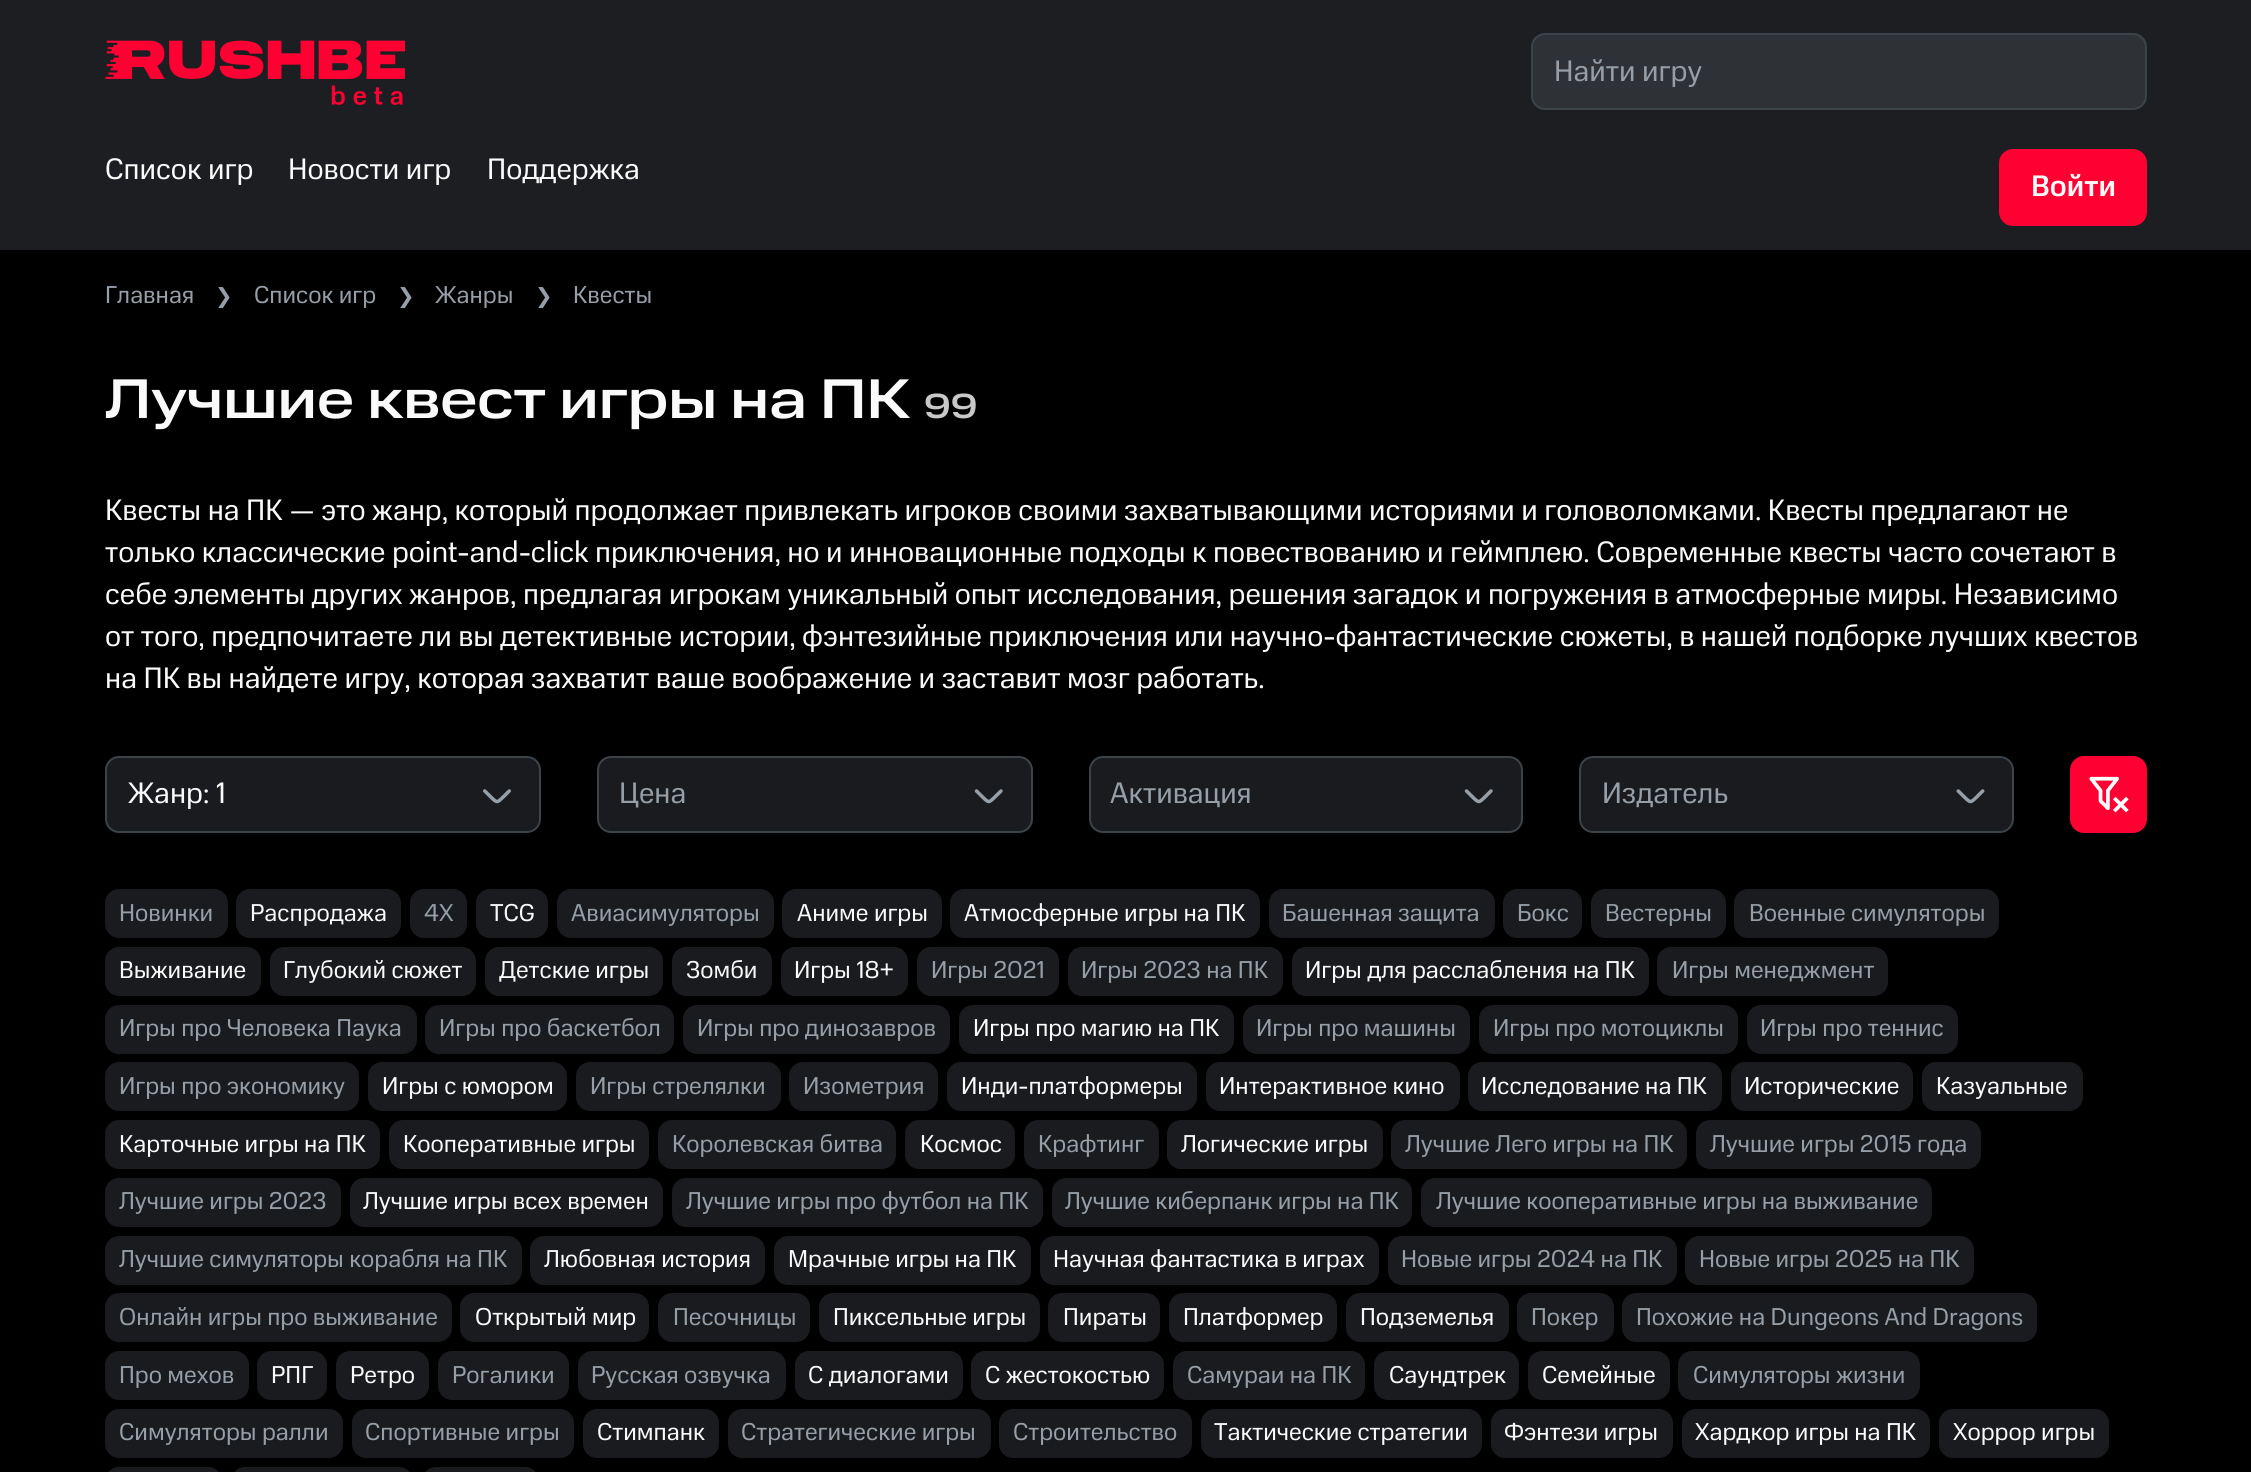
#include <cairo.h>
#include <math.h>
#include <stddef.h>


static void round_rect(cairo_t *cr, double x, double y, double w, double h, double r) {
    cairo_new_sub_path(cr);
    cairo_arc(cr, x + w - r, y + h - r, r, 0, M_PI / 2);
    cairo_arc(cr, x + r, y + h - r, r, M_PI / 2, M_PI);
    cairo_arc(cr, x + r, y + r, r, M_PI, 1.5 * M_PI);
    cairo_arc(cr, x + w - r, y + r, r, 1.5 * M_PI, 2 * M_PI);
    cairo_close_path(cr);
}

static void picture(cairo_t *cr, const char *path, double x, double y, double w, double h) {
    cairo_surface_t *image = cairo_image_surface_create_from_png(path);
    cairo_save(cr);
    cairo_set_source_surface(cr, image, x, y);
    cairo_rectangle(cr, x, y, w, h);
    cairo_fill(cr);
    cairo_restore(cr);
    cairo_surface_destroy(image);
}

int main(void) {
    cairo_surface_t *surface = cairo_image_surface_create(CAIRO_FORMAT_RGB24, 2251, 1472);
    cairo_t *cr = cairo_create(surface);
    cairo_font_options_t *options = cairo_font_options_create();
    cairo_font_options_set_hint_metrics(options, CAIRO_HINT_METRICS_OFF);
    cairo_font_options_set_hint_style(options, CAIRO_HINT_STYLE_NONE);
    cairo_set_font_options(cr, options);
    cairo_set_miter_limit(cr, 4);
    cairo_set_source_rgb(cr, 0, 0, 0);
    cairo_paint(cr);
    cairo_set_source_rgb(cr, 0.11, 0.118, 0.129);
    cairo_rectangle(cr, 0, 0, 2251, 250);
    cairo_fill(cr);
    picture(cr, "img1.png", 105, 40, 300, 65);
    cairo_set_source_rgb(cr, 0.18, 0.196, 0.216);
    round_rect(cr, 1532, 34, 614, 75, 13);
    cairo_fill_preserve(cr);
    cairo_set_source_rgb(cr, 0.235, 0.263, 0.286);
    cairo_stroke(cr);
    cairo_select_font_face(cr, "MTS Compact", CAIRO_FONT_SLANT_NORMAL, CAIRO_FONT_WEIGHT_NORMAL);
    cairo_set_font_size(cr, 29.75);
    cairo_set_source_rgb(cr, 0.588, 0.624, 0.659);
    cairo_move_to(cr, 1554, 81);
    cairo_show_text(cr, "Найти игру");
    cairo_set_source_rgb(cr, 0.98, 0.98, 0.98);
    cairo_move_to(cr, 105, 179);
    cairo_show_text(cr, "Список игр");
    cairo_move_to(cr, 288, 179);
    cairo_show_text(cr, "Новости игр");
    cairo_move_to(cr, 487, 179);
    cairo_show_text(cr, "Поддержка");
    cairo_set_source_rgb(cr, 1, 0, 0.196);
    round_rect(cr, 1999, 149, 148, 77, 14);
    cairo_fill(cr);
    cairo_select_font_face(cr, "MTS Compact Medium", CAIRO_FONT_SLANT_NORMAL, CAIRO_FONT_WEIGHT_NORMAL);
    cairo_set_source_rgb(cr, 0.98, 0.98, 0.98);
    cairo_move_to(cr, 2031, 196);
    cairo_show_text(cr, "Войти");
    cairo_select_font_face(cr, "MTS Compact", CAIRO_FONT_SLANT_NORMAL, CAIRO_FONT_WEIGHT_NORMAL);
    cairo_set_font_size(cr, 24.5);
    cairo_set_source_rgb(cr, 0.588, 0.624, 0.659);
    cairo_move_to(cr, 105, 303);
    cairo_show_text(cr, "Главная");
    cairo_select_font_face(cr, "DejaVu Sans", CAIRO_FONT_SLANT_NORMAL, CAIRO_FONT_WEIGHT_NORMAL);
    cairo_set_font_size(cr, 21);
    cairo_move_to(cr, 215, 303);
    cairo_show_text(cr, "❯");
    cairo_select_font_face(cr, "MTS Compact", CAIRO_FONT_SLANT_NORMAL, CAIRO_FONT_WEIGHT_NORMAL);
    cairo_set_font_size(cr, 24.5);
    cairo_move_to(cr, 254, 303);
    cairo_show_text(cr, "Список игр");
    cairo_select_font_face(cr, "DejaVu Sans", CAIRO_FONT_SLANT_NORMAL, CAIRO_FONT_WEIGHT_NORMAL);
    cairo_set_font_size(cr, 21);
    cairo_move_to(cr, 397, 303);
    cairo_show_text(cr, "❯");
    cairo_select_font_face(cr, "MTS Compact", CAIRO_FONT_SLANT_NORMAL, CAIRO_FONT_WEIGHT_NORMAL);
    cairo_set_font_size(cr, 24.5);
    cairo_move_to(cr, 435, 303);
    cairo_show_text(cr, "Жанры");
    cairo_select_font_face(cr, "DejaVu Sans", CAIRO_FONT_SLANT_NORMAL, CAIRO_FONT_WEIGHT_NORMAL);
    cairo_set_font_size(cr, 21);
    cairo_move_to(cr, 535, 303);
    cairo_show_text(cr, "❯");
    cairo_select_font_face(cr, "MTS Compact", CAIRO_FONT_SLANT_NORMAL, CAIRO_FONT_WEIGHT_NORMAL);
    cairo_set_font_size(cr, 24.5);
    cairo_move_to(cr, 573, 303);
    cairo_show_text(cr, "Квесты");
    cairo_select_font_face(cr, "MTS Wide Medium", CAIRO_FONT_SLANT_NORMAL, CAIRO_FONT_WEIGHT_NORMAL);
    cairo_set_font_size(cr, 56);
    cairo_set_source_rgb(cr, 0.98, 0.98, 0.98);
    cairo_move_to(cr, 105, 418);
    cairo_show_text(cr, "Лучшие квест игры на ПК");
    cairo_set_font_size(cr, 35);
    cairo_set_source_rgb(cr, 0.784, 0.784, 0.784);
    cairo_move_to(cr, 924, 418);
    cairo_show_text(cr, "99");
    cairo_select_font_face(cr, "MTS Compact", CAIRO_FONT_SLANT_NORMAL, CAIRO_FONT_WEIGHT_NORMAL);
    cairo_set_font_size(cr, 29.75);
    cairo_set_source_rgb(cr, 0.98, 0.98, 0.98);
    cairo_move_to(cr, 105, 520);
    cairo_show_text(cr, "Квесты на ПК — это жанр, который продолжает привлекать игроков своими захватывающими историями и головоломками. Квесты предлагают не");
    cairo_move_to(cr, 105, 562);
    cairo_show_text(cr, "только классические point-and-click приключения, но и инновационные подходы к повествованию и геймплею. Современные квесты часто сочетают в");
    cairo_move_to(cr, 105, 604);
    cairo_show_text(cr, "себе элементы других жанров, предлагая игрокам уникальный опыт исследования, решения загадок и погружения в атмосферные миры. Независимо");
    cairo_move_to(cr, 105, 646);
    cairo_show_text(cr, "от того, предпочитаете ли вы детективные истории, фэнтезийные приключения или научно-фантастические сюжеты, в нашей подборке лучших квестов");
    cairo_move_to(cr, 105, 688);
    cairo_show_text(cr, "на ПК вы найдете игру, которая захватит ваше воображение и заставит мозг работать.");
    cairo_set_source_rgb(cr, 0.098, 0.106, 0.118);
    round_rect(cr, 106, 757, 434, 75, 13);
    cairo_fill_preserve(cr);
    cairo_set_source_rgb(cr, 0.235, 0.263, 0.286);
    cairo_stroke(cr);
    cairo_set_source_rgb(cr, 0.98, 0.98, 0.98);
    cairo_move_to(cr, 128, 803);
    cairo_show_text(cr, "Жанр: 1");
    picture(cr, "img2.png", 483, 789, 28, 15);
    cairo_set_source_rgb(cr, 0.098, 0.106, 0.118);
    round_rect(cr, 598, 757, 434, 75, 13);
    cairo_fill_preserve(cr);
    cairo_set_source_rgb(cr, 0.235, 0.263, 0.286);
    cairo_stroke(cr);
    cairo_set_source_rgb(cr, 0.588, 0.624, 0.659);
    cairo_move_to(cr, 619, 803);
    cairo_show_text(cr, "Цена");
    picture(cr, "img3.png", 974, 789, 29, 15);
    cairo_set_source_rgb(cr, 0.098, 0.106, 0.118);
    round_rect(cr, 1090, 757, 432, 75, 13);
    cairo_fill_preserve(cr);
    cairo_set_source_rgb(cr, 0.235, 0.263, 0.286);
    cairo_stroke(cr);
    cairo_set_source_rgb(cr, 0.588, 0.624, 0.659);
    cairo_move_to(cr, 1110, 803);
    cairo_show_text(cr, "Активация");
    picture(cr, "img3.png", 1464, 789, 29, 15);
    cairo_set_source_rgb(cr, 0.098, 0.106, 0.118);
    round_rect(cr, 1580, 757, 433, 75, 13);
    cairo_fill_preserve(cr);
    cairo_set_source_rgb(cr, 0.235, 0.263, 0.286);
    cairo_stroke(cr);
    cairo_set_source_rgb(cr, 0.588, 0.624, 0.659);
    cairo_move_to(cr, 1602, 803);
    cairo_show_text(cr, "Издатель");
    picture(cr, "img4.png", 1956, 789, 29, 15);
    cairo_set_source_rgb(cr, 1, 0, 0.196);
    round_rect(cr, 2070, 756, 77, 77, 14);
    cairo_fill(cr);
    picture(cr, "img5.png", 2089, 776, 40, 37);
    cairo_set_source_rgb(cr, 0.098, 0.106, 0.118);
    round_rect(cr, 105, 889, 123, 49, 14);
    cairo_fill(cr);
    cairo_set_font_size(cr, 24.5);
    cairo_set_source_rgb(cr, 0.588, 0.624, 0.659);
    cairo_move_to(cr, 119, 921);
    cairo_show_text(cr, "Новинки");
    cairo_set_source_rgb(cr, 0.098, 0.106, 0.118);
    round_rect(cr, 236, 889, 165, 49, 14);
    cairo_fill(cr);
    cairo_set_source_rgb(cr, 0.98, 0.98, 0.98);
    cairo_move_to(cr, 250, 921);
    cairo_show_text(cr, "Распродажа");
    cairo_set_source_rgb(cr, 0.098, 0.106, 0.118);
    round_rect(cr, 410, 889, 57, 49, 14);
    cairo_fill(cr);
    cairo_set_source_rgb(cr, 0.588, 0.624, 0.659);
    cairo_move_to(cr, 424, 921);
    cairo_show_text(cr, "4X");
    cairo_set_source_rgb(cr, 0.098, 0.106, 0.118);
    round_rect(cr, 476, 889, 72, 49, 14);
    cairo_fill(cr);
    cairo_set_source_rgb(cr, 0.98, 0.98, 0.98);
    cairo_move_to(cr, 490, 921);
    cairo_show_text(cr, "TCG");
    cairo_set_source_rgb(cr, 0.098, 0.106, 0.118);
    round_rect(cr, 557, 889, 217, 49, 14);
    cairo_fill(cr);
    cairo_set_source_rgb(cr, 0.588, 0.624, 0.659);
    cairo_move_to(cr, 571, 921);
    cairo_show_text(cr, "Авиасимуляторы");
    cairo_set_source_rgb(cr, 0.098, 0.106, 0.118);
    round_rect(cr, 782, 889, 160, 49, 14);
    cairo_fill(cr);
    cairo_set_source_rgb(cr, 0.98, 0.98, 0.98);
    cairo_move_to(cr, 797, 921);
    cairo_show_text(cr, "Аниме игры");
    cairo_set_source_rgb(cr, 0.098, 0.106, 0.118);
    round_rect(cr, 950, 889, 310, 49, 14);
    cairo_fill(cr);
    cairo_set_source_rgb(cr, 0.98, 0.98, 0.98);
    cairo_move_to(cr, 964, 921);
    cairo_show_text(cr, "Атмосферные игры на ПК");
    cairo_set_source_rgb(cr, 0.098, 0.106, 0.118);
    round_rect(cr, 1269, 889, 226, 49, 14);
    cairo_fill(cr);
    cairo_set_source_rgb(cr, 0.588, 0.624, 0.659);
    cairo_move_to(cr, 1282, 921);
    cairo_show_text(cr, "Башенная защита");
    cairo_set_source_rgb(cr, 0.098, 0.106, 0.118);
    round_rect(cr, 1503, 889, 79, 49, 14);
    cairo_fill(cr);
    cairo_set_source_rgb(cr, 0.588, 0.624, 0.659);
    cairo_move_to(cr, 1517, 921);
    cairo_show_text(cr, "Бокс");
    cairo_set_source_rgb(cr, 0.098, 0.106, 0.118);
    round_rect(cr, 1591, 889, 135, 49, 14);
    cairo_fill(cr);
    cairo_set_source_rgb(cr, 0.588, 0.624, 0.659);
    cairo_move_to(cr, 1605, 921);
    cairo_show_text(cr, "Вестерны");
    cairo_set_source_rgb(cr, 0.098, 0.106, 0.118);
    round_rect(cr, 1734, 889, 265, 49, 14);
    cairo_fill(cr);
    cairo_set_source_rgb(cr, 0.588, 0.624, 0.659);
    cairo_move_to(cr, 1749, 921);
    cairo_show_text(cr, "Военные симуляторы");
    cairo_set_source_rgb(cr, 0.098, 0.106, 0.118);
    round_rect(cr, 105, 947, 156, 49, 14);
    cairo_fill(cr);
    cairo_set_source_rgb(cr, 0.98, 0.98, 0.98);
    cairo_move_to(cr, 119, 978);
    cairo_show_text(cr, "Выживание");
    cairo_set_source_rgb(cr, 0.098, 0.106, 0.118);
    round_rect(cr, 270, 947, 206, 49, 14);
    cairo_fill(cr);
    cairo_set_source_rgb(cr, 0.98, 0.98, 0.98);
    cairo_move_to(cr, 283, 978);
    cairo_show_text(cr, "Глубокий сюжет");
    cairo_set_source_rgb(cr, 0.098, 0.106, 0.118);
    round_rect(cr, 485, 947, 178, 49, 14);
    cairo_fill(cr);
    cairo_set_source_rgb(cr, 0.98, 0.98, 0.98);
    cairo_move_to(cr, 499, 978);
    cairo_show_text(cr, "Детские игры");
    cairo_set_source_rgb(cr, 0.098, 0.106, 0.118);
    round_rect(cr, 672, 947, 100, 49, 14);
    cairo_fill(cr);
    cairo_set_source_rgb(cr, 0.98, 0.98, 0.98);
    cairo_move_to(cr, 686, 978);
    cairo_show_text(cr, "Зомби");
    cairo_set_source_rgb(cr, 0.098, 0.106, 0.118);
    round_rect(cr, 781, 947, 127, 49, 14);
    cairo_fill(cr);
    cairo_set_source_rgb(cr, 0.98, 0.98, 0.98);
    cairo_move_to(cr, 794, 978);
    cairo_show_text(cr, "Игры 18+");
    cairo_set_source_rgb(cr, 0.098, 0.106, 0.118);
    round_rect(cr, 917, 947, 142, 49, 14);
    cairo_fill(cr);
    cairo_set_source_rgb(cr, 0.588, 0.624, 0.659);
    cairo_move_to(cr, 931, 978);
    cairo_show_text(cr, "Игры 2021");
    cairo_set_source_rgb(cr, 0.098, 0.106, 0.118);
    round_rect(cr, 1068, 947, 215, 49, 14);
    cairo_fill(cr);
    cairo_set_source_rgb(cr, 0.588, 0.624, 0.659);
    cairo_move_to(cr, 1081, 978);
    cairo_show_text(cr, "Игры 2023 на ПК");
    cairo_set_source_rgb(cr, 0.098, 0.106, 0.118);
    round_rect(cr, 1292, 947, 357, 49, 14);
    cairo_fill(cr);
    cairo_set_source_rgb(cr, 0.98, 0.98, 0.98);
    cairo_move_to(cr, 1305, 978);
    cairo_show_text(cr, "Игры для расслабления на ПК");
    cairo_set_source_rgb(cr, 0.098, 0.106, 0.118);
    round_rect(cr, 1657, 947, 231, 49, 14);
    cairo_fill(cr);
    cairo_set_source_rgb(cr, 0.588, 0.624, 0.659);
    cairo_move_to(cr, 1672, 978);
    cairo_show_text(cr, "Игры менеджмент");
    cairo_set_source_rgb(cr, 0.098, 0.106, 0.118);
    round_rect(cr, 105, 1005, 312, 49, 14);
    cairo_fill(cr);
    cairo_set_source_rgb(cr, 0.588, 0.624, 0.659);
    cairo_move_to(cr, 119, 1036);
    cairo_show_text(cr, "Игры про Человека Паука");
    cairo_set_source_rgb(cr, 0.098, 0.106, 0.118);
    round_rect(cr, 425, 1005, 249, 49, 14);
    cairo_fill(cr);
    cairo_set_source_rgb(cr, 0.588, 0.624, 0.659);
    cairo_move_to(cr, 439, 1036);
    cairo_show_text(cr, "Игры про баскетбол");
    cairo_set_source_rgb(cr, 0.098, 0.106, 0.118);
    round_rect(cr, 683, 1005, 267, 49, 14);
    cairo_fill(cr);
    cairo_set_source_rgb(cr, 0.588, 0.624, 0.659);
    cairo_move_to(cr, 697, 1036);
    cairo_show_text(cr, "Игры про динозавров");
    cairo_set_source_rgb(cr, 0.098, 0.106, 0.118);
    round_rect(cr, 959, 1005, 275, 49, 14);
    cairo_fill(cr);
    cairo_set_source_rgb(cr, 0.98, 0.98, 0.98);
    cairo_move_to(cr, 973, 1036);
    cairo_show_text(cr, "Игры про магию на ПК");
    cairo_set_source_rgb(cr, 0.098, 0.106, 0.118);
    round_rect(cr, 1243, 1005, 227, 49, 14);
    cairo_fill(cr);
    cairo_set_source_rgb(cr, 0.588, 0.624, 0.659);
    cairo_move_to(cr, 1256, 1036);
    cairo_show_text(cr, "Игры про машины");
    cairo_set_source_rgb(cr, 0.098, 0.106, 0.118);
    round_rect(cr, 1479, 1005, 259, 49, 14);
    cairo_fill(cr);
    cairo_set_source_rgb(cr, 0.588, 0.624, 0.659);
    cairo_move_to(cr, 1493, 1036);
    cairo_show_text(cr, "Игры про мотоциклы");
    cairo_set_source_rgb(cr, 0.098, 0.106, 0.118);
    round_rect(cr, 1747, 1005, 211, 49, 14);
    cairo_fill(cr);
    cairo_set_source_rgb(cr, 0.588, 0.624, 0.659);
    cairo_move_to(cr, 1760, 1036);
    cairo_show_text(cr, "Игры про теннис");
    cairo_set_source_rgb(cr, 0.098, 0.106, 0.118);
    round_rect(cr, 105, 1062, 254, 49, 14);
    cairo_fill(cr);
    cairo_set_source_rgb(cr, 0.588, 0.624, 0.659);
    cairo_move_to(cr, 119, 1094);
    cairo_show_text(cr, "Игры про экономику");
    cairo_set_source_rgb(cr, 0.098, 0.106, 0.118);
    round_rect(cr, 368, 1062, 199, 49, 14);
    cairo_fill(cr);
    cairo_set_source_rgb(cr, 0.98, 0.98, 0.98);
    cairo_move_to(cr, 382, 1094);
    cairo_show_text(cr, "Игры с юмором");
    cairo_set_source_rgb(cr, 0.098, 0.106, 0.118);
    round_rect(cr, 576, 1062, 205, 49, 14);
    cairo_fill(cr);
    cairo_set_source_rgb(cr, 0.588, 0.624, 0.659);
    cairo_move_to(cr, 590, 1094);
    cairo_show_text(cr, "Игры стрелялки");
    cairo_set_source_rgb(cr, 0.098, 0.106, 0.118);
    round_rect(cr, 789, 1062, 149, 49, 14);
    cairo_fill(cr);
    cairo_set_source_rgb(cr, 0.588, 0.624, 0.659);
    cairo_move_to(cr, 803, 1094);
    cairo_show_text(cr, "Изометрия");
    cairo_set_source_rgb(cr, 0.098, 0.106, 0.118);
    round_rect(cr, 947, 1062, 250, 49, 14);
    cairo_fill(cr);
    cairo_set_source_rgb(cr, 0.98, 0.98, 0.98);
    cairo_move_to(cr, 961, 1094);
    cairo_show_text(cr, "Инди-платформеры");
    cairo_set_source_rgb(cr, 0.098, 0.106, 0.118);
    round_rect(cr, 1206, 1062, 254, 49, 14);
    cairo_fill(cr);
    cairo_set_source_rgb(cr, 0.98, 0.98, 0.98);
    cairo_move_to(cr, 1219, 1094);
    cairo_show_text(cr, "Интерактивное кино");
    cairo_set_source_rgb(cr, 0.098, 0.106, 0.118);
    round_rect(cr, 1468, 1062, 254, 49, 14);
    cairo_fill(cr);
    cairo_set_source_rgb(cr, 0.98, 0.98, 0.98);
    cairo_move_to(cr, 1481, 1094);
    cairo_show_text(cr, "Исследование на ПК");
    cairo_set_source_rgb(cr, 0.098, 0.106, 0.118);
    round_rect(cr, 1731, 1062, 182, 49, 14);
    cairo_fill(cr);
    cairo_set_source_rgb(cr, 0.98, 0.98, 0.98);
    cairo_move_to(cr, 1744, 1094);
    cairo_show_text(cr, "Исторические");
    cairo_set_source_rgb(cr, 0.098, 0.106, 0.118);
    round_rect(cr, 1922, 1062, 161, 49, 14);
    cairo_fill(cr);
    cairo_set_source_rgb(cr, 0.98, 0.98, 0.98);
    cairo_move_to(cr, 1936, 1094);
    cairo_show_text(cr, "Казуальные");
    cairo_set_source_rgb(cr, 0.098, 0.106, 0.118);
    round_rect(cr, 105, 1120, 275, 49, 14);
    cairo_fill(cr);
    cairo_set_source_rgb(cr, 0.98, 0.98, 0.98);
    cairo_move_to(cr, 119, 1152);
    cairo_show_text(cr, "Карточные игры на ПК");
    cairo_set_source_rgb(cr, 0.098, 0.106, 0.118);
    round_rect(cr, 389, 1120, 260, 49, 14);
    cairo_fill(cr);
    cairo_set_source_rgb(cr, 0.98, 0.98, 0.98);
    cairo_move_to(cr, 403, 1152);
    cairo_show_text(cr, "Кооперативные игры");
    cairo_set_source_rgb(cr, 0.098, 0.106, 0.118);
    round_rect(cr, 658, 1120, 238, 49, 14);
    cairo_fill(cr);
    cairo_set_source_rgb(cr, 0.588, 0.624, 0.659);
    cairo_move_to(cr, 672, 1152);
    cairo_show_text(cr, "Королевская битва");
    cairo_set_source_rgb(cr, 0.098, 0.106, 0.118);
    round_rect(cr, 905, 1120, 110, 49, 14);
    cairo_fill(cr);
    cairo_set_source_rgb(cr, 0.98, 0.98, 0.98);
    cairo_move_to(cr, 920, 1152);
    cairo_show_text(cr, "Космос");
    cairo_set_source_rgb(cr, 0.098, 0.106, 0.118);
    round_rect(cr, 1024, 1120, 135, 49, 14);
    cairo_fill(cr);
    cairo_set_source_rgb(cr, 0.588, 0.624, 0.659);
    cairo_move_to(cr, 1038, 1152);
    cairo_show_text(cr, "Крафтинг");
    cairo_set_source_rgb(cr, 0.098, 0.106, 0.118);
    round_rect(cr, 1167, 1120, 216, 49, 14);
    cairo_fill(cr);
    cairo_set_source_rgb(cr, 0.98, 0.98, 0.98);
    cairo_move_to(cr, 1181, 1152);
    cairo_show_text(cr, "Логические игры");
    cairo_set_source_rgb(cr, 0.098, 0.106, 0.118);
    round_rect(cr, 1391, 1120, 296, 49, 14);
    cairo_fill(cr);
    cairo_set_source_rgb(cr, 0.588, 0.624, 0.659);
    cairo_move_to(cr, 1405, 1152);
    cairo_show_text(cr, "Лучшие Лего игры на ПК");
    cairo_set_source_rgb(cr, 0.098, 0.106, 0.118);
    round_rect(cr, 1696, 1120, 285, 49, 14);
    cairo_fill(cr);
    cairo_set_source_rgb(cr, 0.588, 0.624, 0.659);
    cairo_move_to(cr, 1710, 1152);
    cairo_show_text(cr, "Лучшие игры 2015 года");
    cairo_set_source_rgb(cr, 0.098, 0.106, 0.118);
    round_rect(cr, 105, 1178, 236, 49, 14);
    cairo_fill(cr);
    cairo_set_source_rgb(cr, 0.588, 0.624, 0.659);
    cairo_move_to(cr, 119, 1209);
    cairo_show_text(cr, "Лучшие игры 2023");
    cairo_set_source_rgb(cr, 0.098, 0.106, 0.118);
    round_rect(cr, 350, 1178, 313, 49, 14);
    cairo_fill(cr);
    cairo_set_source_rgb(cr, 0.98, 0.98, 0.98);
    cairo_move_to(cr, 363, 1209);
    cairo_show_text(cr, "Лучшие игры всех времен");
    cairo_set_source_rgb(cr, 0.098, 0.106, 0.118);
    round_rect(cr, 672, 1178, 371, 49, 14);
    cairo_fill(cr);
    cairo_set_source_rgb(cr, 0.588, 0.624, 0.659);
    cairo_move_to(cr, 686, 1209);
    cairo_show_text(cr, "Лучшие игры про футбол на ПК");
    cairo_set_source_rgb(cr, 0.098, 0.106, 0.118);
    round_rect(cr, 1052, 1178, 360, 49, 14);
    cairo_fill(cr);
    cairo_set_source_rgb(cr, 0.588, 0.624, 0.659);
    cairo_move_to(cr, 1065, 1209);
    cairo_show_text(cr, "Лучшие киберпанк игры на ПК");
    cairo_set_source_rgb(cr, 0.098, 0.106, 0.118);
    round_rect(cr, 1421, 1178, 511, 49, 14);
    cairo_fill(cr);
    cairo_set_source_rgb(cr, 0.588, 0.624, 0.659);
    cairo_move_to(cr, 1436, 1209);
    cairo_show_text(cr, "Лучшие кооперативные игры на выживание");
    cairo_set_source_rgb(cr, 0.098, 0.106, 0.118);
    round_rect(cr, 105, 1236, 417, 49, 14);
    cairo_fill(cr);
    cairo_set_source_rgb(cr, 0.588, 0.624, 0.659);
    cairo_move_to(cr, 119, 1267);
    cairo_show_text(cr, "Лучшие симуляторы корабля на ПК");
    cairo_set_source_rgb(cr, 0.098, 0.106, 0.118);
    round_rect(cr, 530, 1236, 235, 49, 14);
    cairo_fill(cr);
    cairo_set_source_rgb(cr, 0.98, 0.98, 0.98);
    cairo_move_to(cr, 544, 1267);
    cairo_show_text(cr, "Любовная история");
    cairo_set_source_rgb(cr, 0.098, 0.106, 0.118);
    round_rect(cr, 774, 1236, 257, 49, 14);
    cairo_fill(cr);
    cairo_set_source_rgb(cr, 0.98, 0.98, 0.98);
    cairo_move_to(cr, 788, 1267);
    cairo_show_text(cr, "Мрачные игры на ПК");
    cairo_set_source_rgb(cr, 0.098, 0.106, 0.118);
    round_rect(cr, 1040, 1236, 339, 49, 14);
    cairo_fill(cr);
    cairo_set_source_rgb(cr, 0.98, 0.98, 0.98);
    cairo_move_to(cr, 1053, 1267);
    cairo_show_text(cr, "Научная фантастика в играх");
    cairo_set_source_rgb(cr, 0.098, 0.106, 0.118);
    round_rect(cr, 1388, 1236, 289, 49, 14);
    cairo_fill(cr);
    cairo_set_source_rgb(cr, 0.588, 0.624, 0.659);
    cairo_move_to(cr, 1401, 1267);
    cairo_show_text(cr, "Новые игры 2024 на ПК");
    cairo_set_source_rgb(cr, 0.098, 0.106, 0.118);
    round_rect(cr, 1685, 1236, 289, 49, 14);
    cairo_fill(cr);
    cairo_set_source_rgb(cr, 0.588, 0.624, 0.659);
    cairo_move_to(cr, 1699, 1267);
    cairo_show_text(cr, "Новые игры 2025 на ПК");
    cairo_set_source_rgb(cr, 0.098, 0.106, 0.118);
    round_rect(cr, 105, 1293, 347, 49, 14);
    cairo_fill(cr);
    cairo_set_source_rgb(cr, 0.588, 0.624, 0.659);
    cairo_move_to(cr, 119, 1325);
    cairo_show_text(cr, "Онлайн игры про выживание");
    cairo_set_source_rgb(cr, 0.098, 0.106, 0.118);
    round_rect(cr, 460, 1293, 189, 49, 14);
    cairo_fill(cr);
    cairo_set_source_rgb(cr, 0.98, 0.98, 0.98);
    cairo_move_to(cr, 475, 1325);
    cairo_show_text(cr, "Открытый мир");
    cairo_set_source_rgb(cr, 0.098, 0.106, 0.118);
    round_rect(cr, 658, 1293, 152, 49, 14);
    cairo_fill(cr);
    cairo_set_source_rgb(cr, 0.588, 0.624, 0.659);
    cairo_move_to(cr, 673, 1325);
    cairo_show_text(cr, "Песочницы");
    cairo_set_source_rgb(cr, 0.098, 0.106, 0.118);
    round_rect(cr, 819, 1293, 221, 49, 14);
    cairo_fill(cr);
    cairo_set_source_rgb(cr, 0.98, 0.98, 0.98);
    cairo_move_to(cr, 833, 1325);
    cairo_show_text(cr, "Пиксельные игры");
    cairo_set_source_rgb(cr, 0.098, 0.106, 0.118);
    round_rect(cr, 1048, 1293, 112, 49, 14);
    cairo_fill(cr);
    cairo_set_source_rgb(cr, 0.98, 0.98, 0.98);
    cairo_move_to(cr, 1063, 1325);
    cairo_show_text(cr, "Пираты");
    cairo_set_source_rgb(cr, 0.098, 0.106, 0.118);
    round_rect(cr, 1169, 1293, 168, 49, 14);
    cairo_fill(cr);
    cairo_set_source_rgb(cr, 0.98, 0.98, 0.98);
    cairo_move_to(cr, 1183, 1325);
    cairo_show_text(cr, "Платформер");
    cairo_set_source_rgb(cr, 0.098, 0.106, 0.118);
    round_rect(cr, 1346, 1293, 163, 49, 14);
    cairo_fill(cr);
    cairo_set_source_rgb(cr, 0.98, 0.98, 0.98);
    cairo_move_to(cr, 1360, 1325);
    cairo_show_text(cr, "Подземелья");
    cairo_set_source_rgb(cr, 0.098, 0.106, 0.118);
    round_rect(cr, 1517, 1293, 97, 49, 14);
    cairo_fill(cr);
    cairo_set_source_rgb(cr, 0.588, 0.624, 0.659);
    cairo_move_to(cr, 1531, 1325);
    cairo_show_text(cr, "Покер");
    cairo_set_source_rgb(cr, 0.098, 0.106, 0.118);
    round_rect(cr, 1622, 1293, 415, 49, 14);
    cairo_fill(cr);
    cairo_set_source_rgb(cr, 0.588, 0.624, 0.659);
    cairo_move_to(cr, 1636, 1325);
    cairo_show_text(cr, "Похожие на Dungeons And Dragons");
    cairo_set_source_rgb(cr, 0.098, 0.106, 0.118);
    round_rect(cr, 105, 1351, 144, 49, 14);
    cairo_fill(cr);
    cairo_set_source_rgb(cr, 0.588, 0.624, 0.659);
    cairo_move_to(cr, 119, 1383);
    cairo_show_text(cr, "Про мехов");
    cairo_set_source_rgb(cr, 0.098, 0.106, 0.118);
    round_rect(cr, 257, 1351, 70, 49, 14);
    cairo_fill(cr);
    cairo_set_source_rgb(cr, 0.98, 0.98, 0.98);
    cairo_move_to(cr, 271, 1383);
    cairo_show_text(cr, "РПГ");
    cairo_set_source_rgb(cr, 0.098, 0.106, 0.118);
    round_rect(cr, 336, 1351, 93, 49, 14);
    cairo_fill(cr);
    cairo_set_source_rgb(cr, 0.98, 0.98, 0.98);
    cairo_move_to(cr, 350, 1383);
    cairo_show_text(cr, "Ретро");
    cairo_set_source_rgb(cr, 0.098, 0.106, 0.118);
    round_rect(cr, 438, 1351, 131, 49, 14);
    cairo_fill(cr);
    cairo_set_source_rgb(cr, 0.588, 0.624, 0.659);
    cairo_move_to(cr, 452, 1383);
    cairo_show_text(cr, "Рогалики");
    cairo_set_source_rgb(cr, 0.098, 0.106, 0.118);
    round_rect(cr, 578, 1351, 208, 49, 14);
    cairo_fill(cr);
    cairo_set_source_rgb(cr, 0.588, 0.624, 0.659);
    cairo_move_to(cr, 591, 1383);
    cairo_show_text(cr, "Русская озвучка");
    cairo_set_source_rgb(cr, 0.098, 0.106, 0.118);
    round_rect(cr, 795, 1351, 168, 49, 14);
    cairo_fill(cr);
    cairo_set_source_rgb(cr, 0.98, 0.98, 0.98);
    cairo_move_to(cr, 808, 1383);
    cairo_show_text(cr, "С диалогами");
    cairo_set_source_rgb(cr, 0.098, 0.106, 0.118);
    round_rect(cr, 971, 1351, 193, 49, 14);
    cairo_fill(cr);
    cairo_set_source_rgb(cr, 0.98, 0.98, 0.98);
    cairo_move_to(cr, 985, 1383);
    cairo_show_text(cr, "С жестокостью");
    cairo_set_source_rgb(cr, 0.098, 0.106, 0.118);
    round_rect(cr, 1173, 1351, 192, 49, 14);
    cairo_fill(cr);
    cairo_set_source_rgb(cr, 0.588, 0.624, 0.659);
    cairo_move_to(cr, 1187, 1383);
    cairo_show_text(cr, "Самураи на ПК");
    cairo_set_source_rgb(cr, 0.098, 0.106, 0.118);
    round_rect(cr, 1374, 1351, 145, 49, 14);
    cairo_fill(cr);
    cairo_set_source_rgb(cr, 0.98, 0.98, 0.98);
    cairo_move_to(cr, 1389, 1383);
    cairo_show_text(cr, "Саундтрек");
    cairo_set_source_rgb(cr, 0.098, 0.106, 0.118);
    round_rect(cr, 1528, 1351, 142, 49, 14);
    cairo_fill(cr);
    cairo_set_source_rgb(cr, 0.98, 0.98, 0.98);
    cairo_move_to(cr, 1542, 1383);
    cairo_show_text(cr, "Семейные");
    cairo_set_source_rgb(cr, 0.098, 0.106, 0.118);
    round_rect(cr, 1678, 1351, 242, 49, 14);
    cairo_fill(cr);
    cairo_set_source_rgb(cr, 0.588, 0.624, 0.659);
    cairo_move_to(cr, 1693, 1383);
    cairo_show_text(cr, "Симуляторы жизни");
    cairo_set_source_rgb(cr, 0.098, 0.106, 0.118);
    round_rect(cr, 105, 1409, 238, 49, 14);
    cairo_fill(cr);
    cairo_set_source_rgb(cr, 0.588, 0.624, 0.659);
    cairo_move_to(cr, 119, 1440);
    cairo_show_text(cr, "Симуляторы ралли");
    cairo_set_source_rgb(cr, 0.098, 0.106, 0.118);
    round_rect(cr, 352, 1409, 222, 49, 14);
    cairo_fill(cr);
    cairo_set_source_rgb(cr, 0.588, 0.624, 0.659);
    cairo_move_to(cr, 365, 1440);
    cairo_show_text(cr, "Спортивные игры");
    cairo_set_source_rgb(cr, 0.098, 0.106, 0.118);
    round_rect(cr, 583, 1409, 136, 49, 14);
    cairo_fill(cr);
    cairo_set_source_rgb(cr, 0.98, 0.98, 0.98);
    cairo_move_to(cr, 597, 1440);
    cairo_show_text(cr, "Стимпанк");
    cairo_set_source_rgb(cr, 0.098, 0.106, 0.118);
    round_rect(cr, 728, 1409, 263, 49, 14);
    cairo_fill(cr);
    cairo_set_source_rgb(cr, 0.588, 0.624, 0.659);
    cairo_move_to(cr, 741, 1440);
    cairo_show_text(cr, "Стратегические игры");
    cairo_set_source_rgb(cr, 0.098, 0.106, 0.118);
    round_rect(cr, 999, 1409, 193, 49, 14);
    cairo_fill(cr);
    cairo_set_source_rgb(cr, 0.588, 0.624, 0.659);
    cairo_move_to(cr, 1013, 1440);
    cairo_show_text(cr, "Строительство");
    cairo_set_source_rgb(cr, 0.098, 0.106, 0.118);
    round_rect(cr, 1201, 1409, 281, 49, 14);
    cairo_fill(cr);
    cairo_set_source_rgb(cr, 0.98, 0.98, 0.98);
    cairo_move_to(cr, 1214, 1440);
    cairo_show_text(cr, "Тактические стратегии");
    cairo_set_source_rgb(cr, 0.098, 0.106, 0.118);
    round_rect(cr, 1491, 1409, 182, 49, 14);
    cairo_fill(cr);
    cairo_set_source_rgb(cr, 0.98, 0.98, 0.98);
    cairo_move_to(cr, 1504, 1440);
    cairo_show_text(cr, "Фэнтези игры");
    cairo_set_source_rgb(cr, 0.098, 0.106, 0.118);
    round_rect(cr, 1682, 1409, 248, 49, 14);
    cairo_fill(cr);
    cairo_set_source_rgb(cr, 0.98, 0.98, 0.98);
    cairo_move_to(cr, 1695, 1440);
    cairo_show_text(cr, "Хардкор игры на ПК");
    cairo_set_source_rgb(cr, 0.098, 0.106, 0.118);
    round_rect(cr, 1939, 1409, 170, 49, 14);
    cairo_fill(cr);
    cairo_set_source_rgb(cr, 0.98, 0.98, 0.98);
    cairo_move_to(cr, 1953, 1440);
    cairo_show_text(cr, "Хоррор игры");
    cairo_set_source_rgb(cr, 0.098, 0.106, 0.118);
    round_rect(cr, 105, 1467, 117, 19, 14);
    cairo_fill(cr);
    round_rect(cr, 231, 1467, 182, 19, 14);
    cairo_fill(cr);
    round_rect(cr, 422, 1467, 117, 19, 14);
    cairo_fill(cr);
    cairo_surface_write_to_png(surface, "page.png");
    cairo_font_options_destroy(options);
    cairo_destroy(cr);
    cairo_surface_destroy(surface);
    return 0;
}
